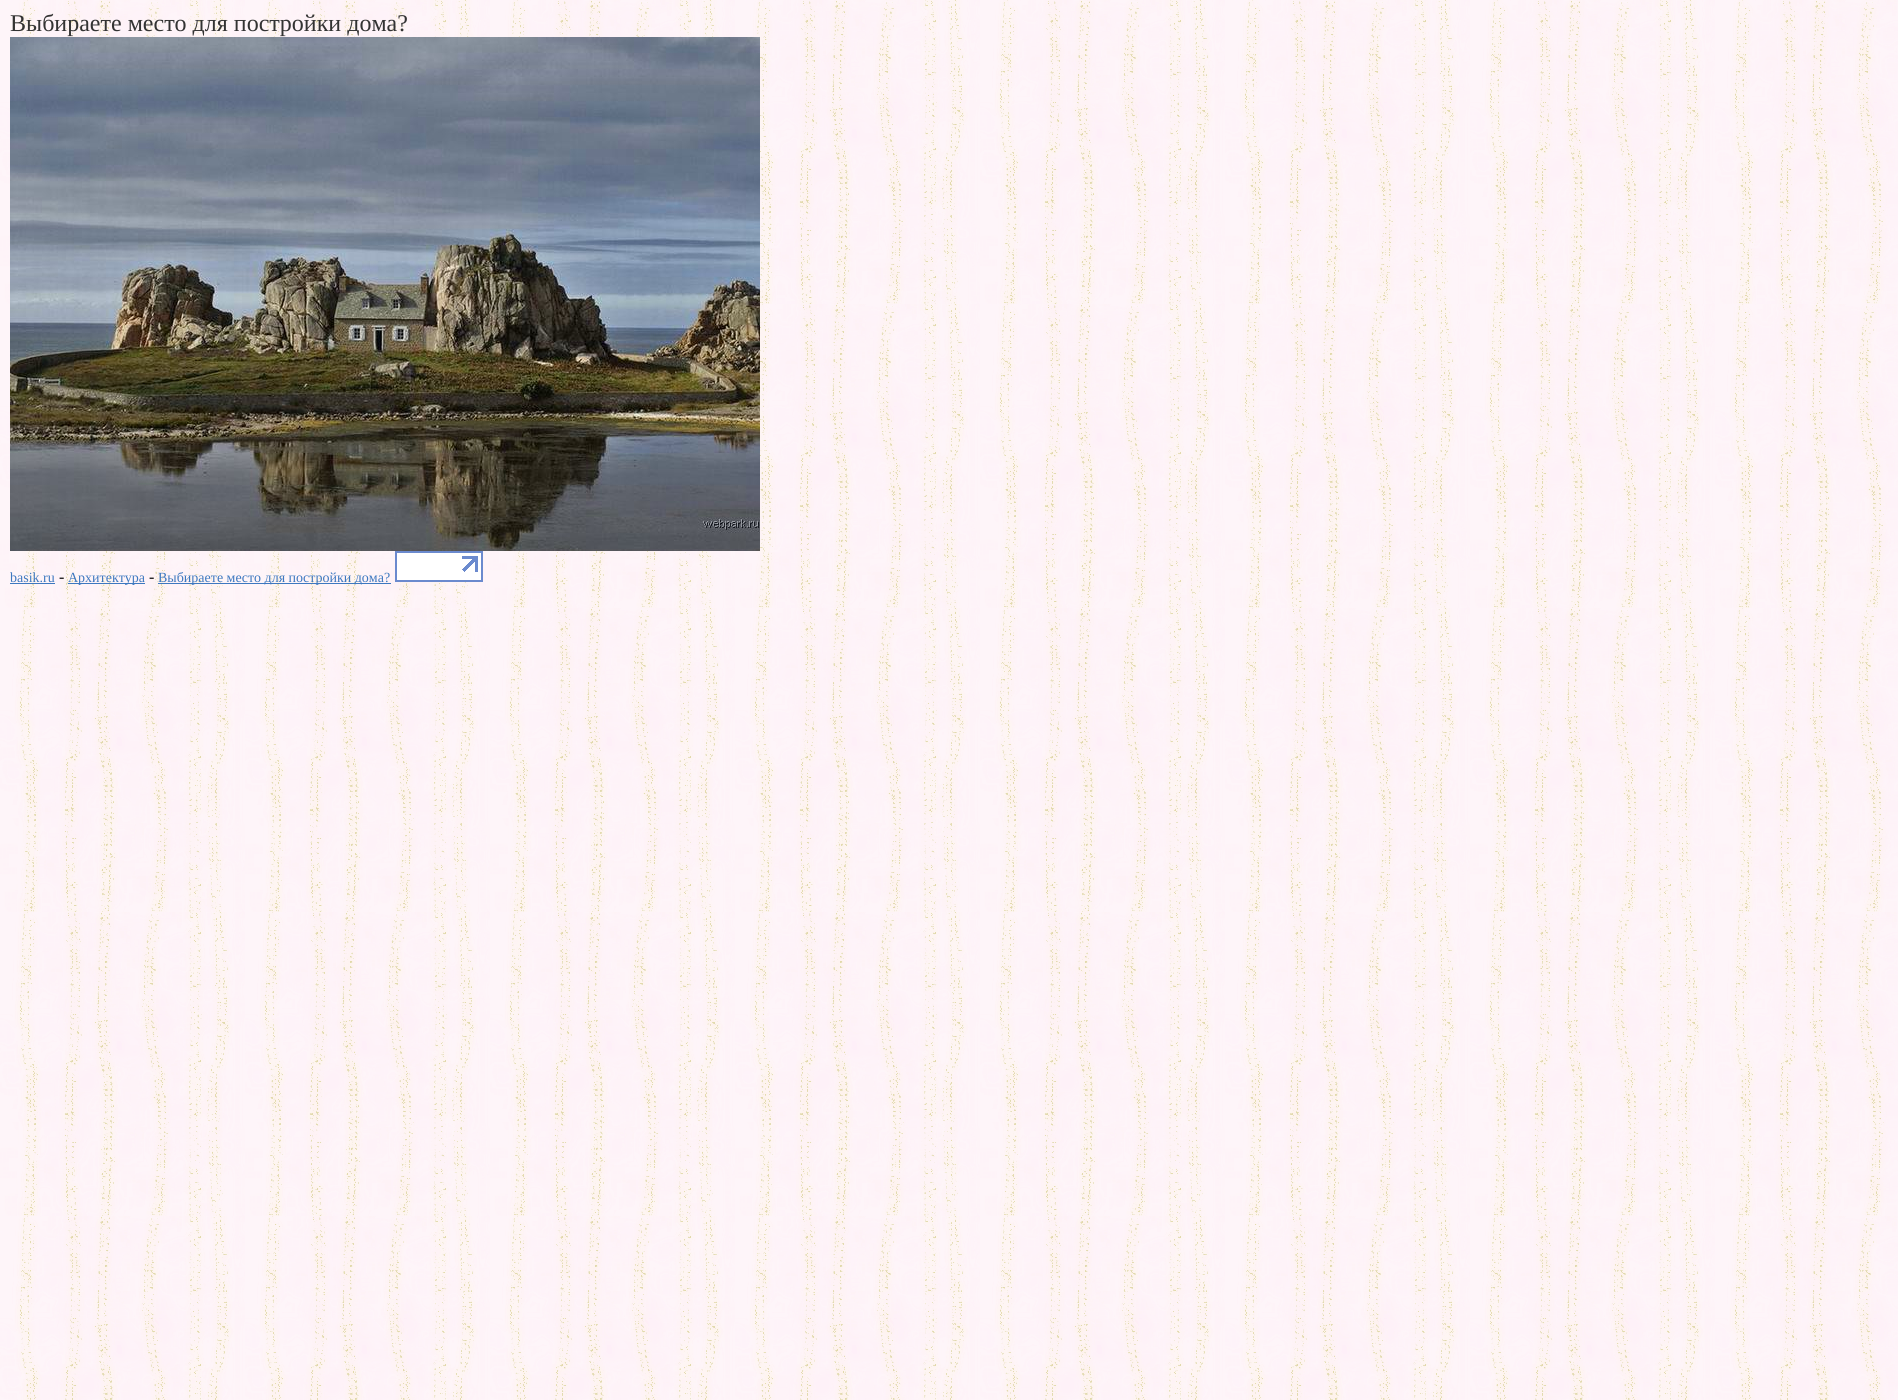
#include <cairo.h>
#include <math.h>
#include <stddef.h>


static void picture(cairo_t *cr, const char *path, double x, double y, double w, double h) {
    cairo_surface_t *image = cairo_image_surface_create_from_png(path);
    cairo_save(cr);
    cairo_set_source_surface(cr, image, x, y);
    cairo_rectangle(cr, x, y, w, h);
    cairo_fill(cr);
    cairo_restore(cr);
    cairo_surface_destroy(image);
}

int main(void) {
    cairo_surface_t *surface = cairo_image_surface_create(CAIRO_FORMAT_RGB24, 1898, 1400);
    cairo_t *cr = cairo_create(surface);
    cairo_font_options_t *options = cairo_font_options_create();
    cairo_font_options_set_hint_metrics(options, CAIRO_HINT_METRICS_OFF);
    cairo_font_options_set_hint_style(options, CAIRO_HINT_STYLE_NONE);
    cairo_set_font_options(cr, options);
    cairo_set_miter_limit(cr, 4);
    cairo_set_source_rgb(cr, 1, 1, 1);
    cairo_paint(cr);
    picture(cr, "img1.png", 0, 0, 1898, 1400);
    cairo_select_font_face(cr, "Liberation Serif", CAIRO_FONT_SLANT_NORMAL, CAIRO_FONT_WEIGHT_NORMAL);
    cairo_set_font_size(cr, 24);
    cairo_set_source_rgb(cr, 0.2, 0.2, 0.2);
    cairo_move_to(cr, 10, 31);
    cairo_show_text(cr, "Выбираете место для постройки дома?");
    picture(cr, "img2.png", 10, 37, 750, 514);
    cairo_set_font_size(cr, 14);
    cairo_set_source_rgb(cr, 0.239, 0.471, 0.753);
    cairo_move_to(cr, 10, 582);
    cairo_show_text(cr, "basik.ru");
    cairo_rectangle(cr, 10, 583, 45, 1);
    cairo_fill(cr);
    cairo_set_font_size(cr, 16);
    cairo_set_source_rgb(cr, 0, 0, 0);
    cairo_move_to(cr, 59, 582);
    cairo_show_text(cr, "-");
    cairo_set_source_rgb(cr, 0.239, 0.471, 0.753);
    cairo_rectangle(cr, 68, 583, 77, 1);
    cairo_fill(cr);
    cairo_set_font_size(cr, 14);
    cairo_move_to(cr, 68, 582);
    cairo_show_text(cr, "Архитектура");
    cairo_set_font_size(cr, 16);
    cairo_set_source_rgb(cr, 0, 0, 0);
    cairo_move_to(cr, 149, 582);
    cairo_show_text(cr, "-");
    cairo_set_source_rgb(cr, 0.239, 0.471, 0.753);
    cairo_rectangle(cr, 158, 583, 233, 1);
    cairo_fill(cr);
    cairo_set_font_size(cr, 14);
    cairo_move_to(cr, 158, 582);
    cairo_show_text(cr, "Выбираете место для постройки дома?");
    picture(cr, "img3.png", 395, 551, 88, 31);
    cairo_surface_write_to_png(surface, "page.png");
    cairo_font_options_destroy(options);
    cairo_destroy(cr);
    cairo_surface_destroy(surface);
    return 0;
}
